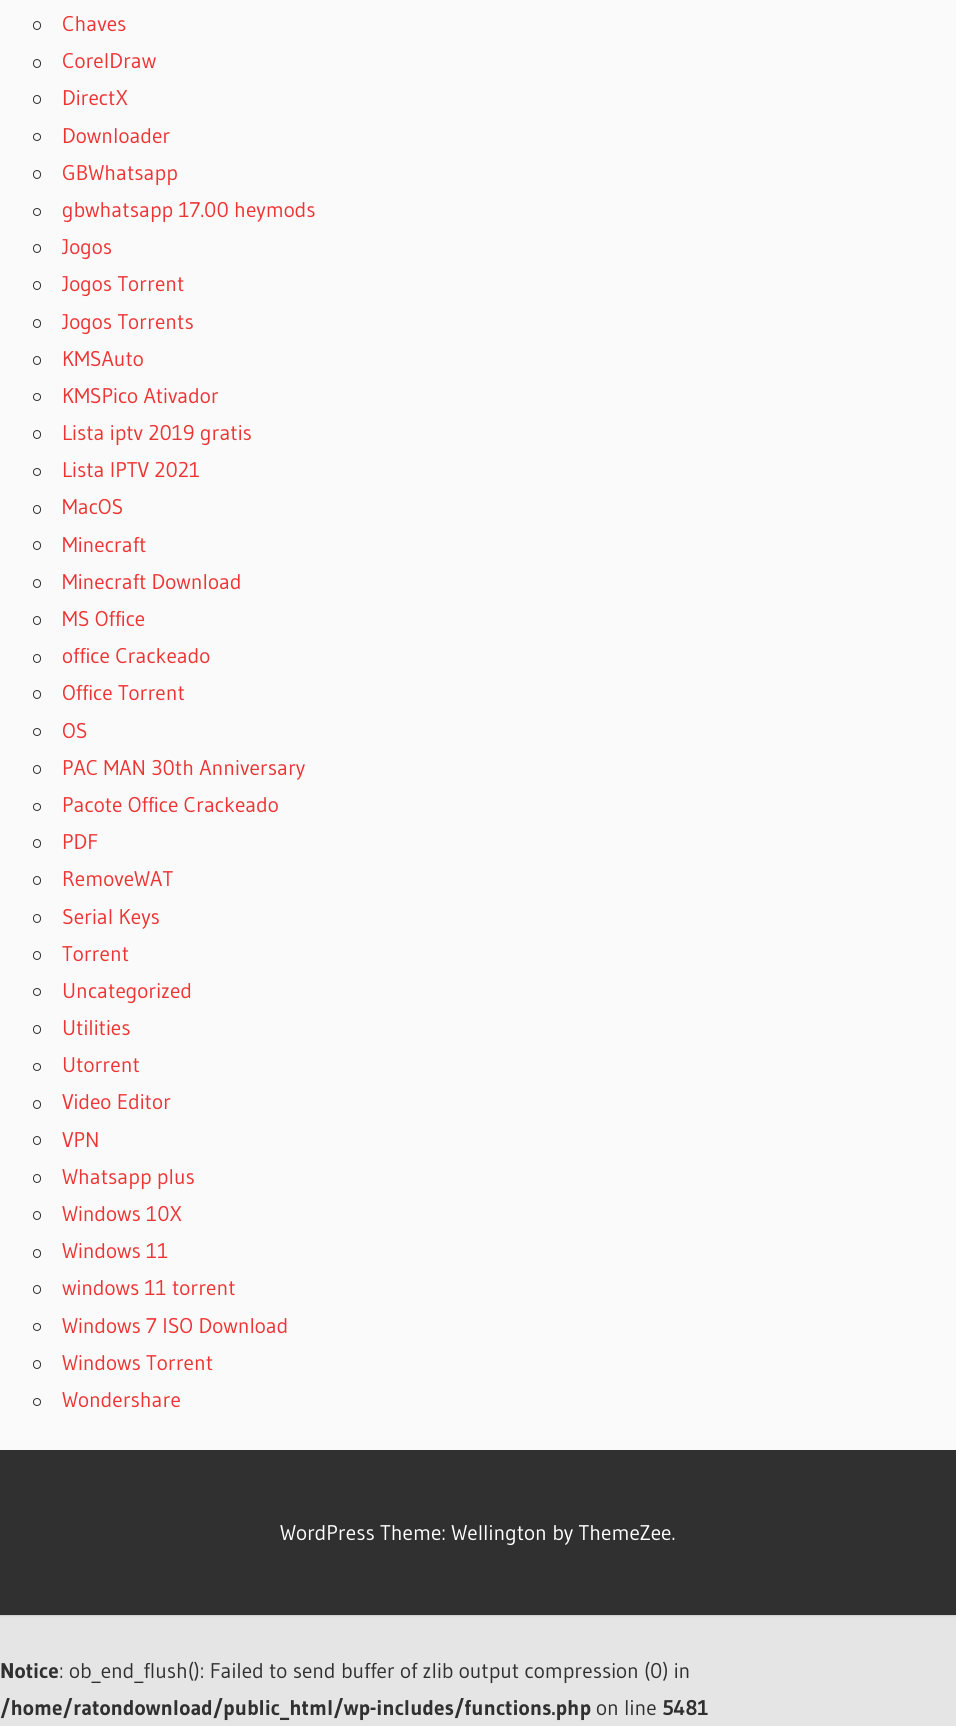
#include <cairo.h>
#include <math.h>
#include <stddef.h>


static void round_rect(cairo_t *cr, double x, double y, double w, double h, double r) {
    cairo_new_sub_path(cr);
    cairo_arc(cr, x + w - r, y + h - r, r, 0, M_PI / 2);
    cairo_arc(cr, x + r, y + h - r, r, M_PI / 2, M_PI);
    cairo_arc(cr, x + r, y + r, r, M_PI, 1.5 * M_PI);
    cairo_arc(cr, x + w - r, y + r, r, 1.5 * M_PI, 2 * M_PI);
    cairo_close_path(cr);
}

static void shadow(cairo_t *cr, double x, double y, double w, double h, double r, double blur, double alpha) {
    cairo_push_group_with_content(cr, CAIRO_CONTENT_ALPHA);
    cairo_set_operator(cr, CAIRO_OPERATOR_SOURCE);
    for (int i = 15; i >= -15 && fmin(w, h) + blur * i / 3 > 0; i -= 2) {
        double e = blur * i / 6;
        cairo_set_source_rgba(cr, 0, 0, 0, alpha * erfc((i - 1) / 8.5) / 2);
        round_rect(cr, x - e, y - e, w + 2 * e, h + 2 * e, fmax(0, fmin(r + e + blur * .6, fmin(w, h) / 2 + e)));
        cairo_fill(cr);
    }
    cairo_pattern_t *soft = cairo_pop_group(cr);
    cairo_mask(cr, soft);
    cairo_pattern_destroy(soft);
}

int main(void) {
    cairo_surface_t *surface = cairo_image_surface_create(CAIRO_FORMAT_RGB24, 956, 1726);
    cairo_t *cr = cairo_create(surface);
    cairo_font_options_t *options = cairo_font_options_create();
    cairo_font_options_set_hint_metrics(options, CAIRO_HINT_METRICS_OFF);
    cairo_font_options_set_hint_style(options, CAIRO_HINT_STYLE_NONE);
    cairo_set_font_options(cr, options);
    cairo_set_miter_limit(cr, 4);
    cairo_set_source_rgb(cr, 0.898, 0.898, 0.898);
    cairo_paint(cr);
    cairo_set_source_rgb(cr, 0.667, 0.667, 0.667);
    shadow(cr, 0, -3, 956, 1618, 0, 1, 1);
    cairo_set_source_rgb(cr, 0.98, 0.98, 0.98);
    cairo_rectangle(cr, 0, 0, 956, 1450);
    cairo_fill(cr);
    round_rect(cr, 33.5, 21.5, 7, 8, 3.5);
    cairo_set_source_rgb(cr, 0.188, 0.188, 0.188);
    cairo_set_line_width(cr, 1);
    cairo_stroke(cr);
    cairo_select_font_face(cr, "Gudea", CAIRO_FONT_SLANT_NORMAL, CAIRO_FONT_WEIGHT_NORMAL);
    cairo_set_font_size(cr, 21.25);
    cairo_set_source_rgb(cr, 0.933, 0.2, 0.2);
    cairo_move_to(cr, 62, 31);
    cairo_show_text(cr, "Chaves");
    round_rect(cr, 33.5, 59.5, 7, 8, 3.5);
    cairo_set_source_rgb(cr, 0.188, 0.188, 0.188);
    cairo_stroke(cr);
    cairo_set_source_rgb(cr, 0.933, 0.2, 0.2);
    cairo_move_to(cr, 62, 68);
    cairo_show_text(cr, "CorelDraw");
    round_rect(cr, 33.5, 95.5, 7, 8, 3.5);
    cairo_set_source_rgb(cr, 0.188, 0.188, 0.188);
    cairo_stroke(cr);
    cairo_set_source_rgb(cr, 0.933, 0.2, 0.2);
    cairo_move_to(cr, 62, 105);
    cairo_show_text(cr, "DirectX");
    cairo_new_path(cr);
    cairo_arc(cr, 37, 137, 3.5, 0, 2 * M_PI);
    cairo_set_source_rgb(cr, 0.188, 0.188, 0.188);
    cairo_stroke(cr);
    cairo_set_source_rgb(cr, 0.933, 0.2, 0.2);
    cairo_move_to(cr, 62, 143);
    cairo_show_text(cr, "Downloader");
    round_rect(cr, 33.5, 170.5, 7, 8, 3.5);
    cairo_set_source_rgb(cr, 0.188, 0.188, 0.188);
    cairo_stroke(cr);
    cairo_set_source_rgb(cr, 0.933, 0.2, 0.2);
    cairo_move_to(cr, 62, 180);
    cairo_show_text(cr, "GBWhatsapp");
    cairo_new_path(cr);
    cairo_arc(cr, 37, 212, 3.5, 0, 2 * M_PI);
    cairo_set_source_rgb(cr, 0.188, 0.188, 0.188);
    cairo_stroke(cr);
    cairo_set_source_rgb(cr, 0.933, 0.2, 0.2);
    cairo_move_to(cr, 62, 217);
    cairo_show_text(cr, "gbwhatsapp 17.00 heymods");
    round_rect(cr, 33.5, 244.5, 7, 8, 3.5);
    cairo_set_source_rgb(cr, 0.188, 0.188, 0.188);
    cairo_stroke(cr);
    cairo_set_source_rgb(cr, 0.933, 0.2, 0.2);
    cairo_move_to(cr, 62, 254);
    cairo_show_text(cr, "Jogos");
    round_rect(cr, 33.5, 281.5, 7, 8, 3.5);
    cairo_set_source_rgb(cr, 0.188, 0.188, 0.188);
    cairo_stroke(cr);
    cairo_set_source_rgb(cr, 0.933, 0.2, 0.2);
    cairo_move_to(cr, 62, 291);
    cairo_show_text(cr, "Jogos Torrent");
    round_rect(cr, 33.5, 319.5, 7, 8, 3.5);
    cairo_set_source_rgb(cr, 0.188, 0.188, 0.188);
    cairo_stroke(cr);
    cairo_set_source_rgb(cr, 0.933, 0.2, 0.2);
    cairo_move_to(cr, 62, 329);
    cairo_show_text(cr, "Jogos Torrents");
    round_rect(cr, 33.5, 356.5, 7, 8, 3.5);
    cairo_set_source_rgb(cr, 0.188, 0.188, 0.188);
    cairo_stroke(cr);
    cairo_set_source_rgb(cr, 0.933, 0.2, 0.2);
    cairo_move_to(cr, 62, 366);
    cairo_show_text(cr, "KMSAuto");
    cairo_new_path(cr);
    cairo_arc(cr, 37, 397, 3.5, 0, 2 * M_PI);
    cairo_set_source_rgb(cr, 0.188, 0.188, 0.188);
    cairo_stroke(cr);
    cairo_set_source_rgb(cr, 0.933, 0.2, 0.2);
    cairo_move_to(cr, 62, 403);
    cairo_show_text(cr, "KMSPico Ativador");
    round_rect(cr, 33.5, 430.5, 7, 8, 3.5);
    cairo_set_source_rgb(cr, 0.188, 0.188, 0.188);
    cairo_stroke(cr);
    cairo_set_source_rgb(cr, 0.933, 0.2, 0.2);
    cairo_move_to(cr, 62, 440);
    cairo_show_text(cr, "Lista iptv 2019 gratis");
    cairo_new_path(cr);
    cairo_arc(cr, 37, 472, 3.5, 0, 2 * M_PI);
    cairo_set_source_rgb(cr, 0.188, 0.188, 0.188);
    cairo_stroke(cr);
    cairo_set_source_rgb(cr, 0.933, 0.2, 0.2);
    cairo_move_to(cr, 62, 477);
    cairo_show_text(cr, "Lista IPTV 2021");
    round_rect(cr, 33.5, 505.5, 7, 8, 3.5);
    cairo_set_source_rgb(cr, 0.188, 0.188, 0.188);
    cairo_stroke(cr);
    cairo_set_source_rgb(cr, 0.933, 0.2, 0.2);
    cairo_move_to(cr, 62, 514);
    cairo_show_text(cr, "MacOS");
    round_rect(cr, 33.5, 541.5, 7, 8, 3.5);
    cairo_set_source_rgb(cr, 0.188, 0.188, 0.188);
    cairo_stroke(cr);
    cairo_set_source_rgb(cr, 0.933, 0.2, 0.2);
    cairo_move_to(cr, 62, 552);
    cairo_show_text(cr, "Minecraft");
    round_rect(cr, 33.5, 579.5, 7, 8, 3.5);
    cairo_set_source_rgb(cr, 0.188, 0.188, 0.188);
    cairo_stroke(cr);
    cairo_set_source_rgb(cr, 0.933, 0.2, 0.2);
    cairo_move_to(cr, 62, 589);
    cairo_show_text(cr, "Minecraft Download");
    round_rect(cr, 33.5, 616.5, 7, 8, 3.5);
    cairo_set_source_rgb(cr, 0.188, 0.188, 0.188);
    cairo_stroke(cr);
    cairo_set_source_rgb(cr, 0.933, 0.2, 0.2);
    cairo_move_to(cr, 62, 626);
    cairo_show_text(cr, "MS Office");
    round_rect(cr, 33.5, 654.5, 7, 8, 3.5);
    cairo_set_source_rgb(cr, 0.188, 0.188, 0.188);
    cairo_stroke(cr);
    cairo_set_source_rgb(cr, 0.933, 0.2, 0.2);
    cairo_move_to(cr, 62, 663);
    cairo_show_text(cr, "office Crackeado");
    round_rect(cr, 33.5, 690.5, 7, 8, 3.5);
    cairo_set_source_rgb(cr, 0.188, 0.188, 0.188);
    cairo_stroke(cr);
    cairo_set_source_rgb(cr, 0.933, 0.2, 0.2);
    cairo_move_to(cr, 62, 700);
    cairo_show_text(cr, "Office Torrent");
    cairo_new_path(cr);
    cairo_arc(cr, 37, 732, 3.5, 0, 2 * M_PI);
    cairo_set_source_rgb(cr, 0.188, 0.188, 0.188);
    cairo_stroke(cr);
    cairo_set_source_rgb(cr, 0.933, 0.2, 0.2);
    cairo_move_to(cr, 62, 738);
    cairo_show_text(cr, "OS");
    round_rect(cr, 33.5, 765.5, 7, 8, 3.5);
    cairo_set_source_rgb(cr, 0.188, 0.188, 0.188);
    cairo_stroke(cr);
    cairo_set_source_rgb(cr, 0.933, 0.2, 0.2);
    cairo_move_to(cr, 62, 775);
    cairo_show_text(cr, "PAC MAN 30th Anniversary");
    cairo_new_path(cr);
    cairo_arc(cr, 37, 807, 3.5, 0, 2 * M_PI);
    cairo_set_source_rgb(cr, 0.188, 0.188, 0.188);
    cairo_stroke(cr);
    cairo_set_source_rgb(cr, 0.933, 0.2, 0.2);
    cairo_move_to(cr, 62, 812);
    cairo_show_text(cr, "Pacote Office Crackeado");
    round_rect(cr, 33.5, 839.5, 7, 8, 3.5);
    cairo_set_source_rgb(cr, 0.188, 0.188, 0.188);
    cairo_stroke(cr);
    cairo_set_source_rgb(cr, 0.933, 0.2, 0.2);
    cairo_move_to(cr, 62, 849);
    cairo_show_text(cr, "PDF");
    round_rect(cr, 33.5, 876.5, 7, 8, 3.5);
    cairo_set_source_rgb(cr, 0.188, 0.188, 0.188);
    cairo_stroke(cr);
    cairo_set_source_rgb(cr, 0.933, 0.2, 0.2);
    cairo_move_to(cr, 62, 886);
    cairo_show_text(cr, "RemoveWAT");
    round_rect(cr, 33.5, 914.5, 7, 8, 3.5);
    cairo_set_source_rgb(cr, 0.188, 0.188, 0.188);
    cairo_stroke(cr);
    cairo_set_source_rgb(cr, 0.933, 0.2, 0.2);
    cairo_move_to(cr, 62, 924);
    cairo_show_text(cr, "Serial Keys");
    round_rect(cr, 33.5, 951.5, 7, 8, 3.5);
    cairo_set_source_rgb(cr, 0.188, 0.188, 0.188);
    cairo_stroke(cr);
    cairo_set_source_rgb(cr, 0.933, 0.2, 0.2);
    cairo_move_to(cr, 62, 961);
    cairo_show_text(cr, "Torrent");
    cairo_new_path(cr);
    cairo_arc(cr, 37, 992, 3.5, 0, 2 * M_PI);
    cairo_set_source_rgb(cr, 0.188, 0.188, 0.188);
    cairo_stroke(cr);
    cairo_set_source_rgb(cr, 0.933, 0.2, 0.2);
    cairo_move_to(cr, 62, 998);
    cairo_show_text(cr, "Uncategorized");
    round_rect(cr, 33.5, 1025.5, 7, 8, 3.5);
    cairo_set_source_rgb(cr, 0.188, 0.188, 0.188);
    cairo_stroke(cr);
    cairo_set_source_rgb(cr, 0.933, 0.2, 0.2);
    cairo_move_to(cr, 62, 1035);
    cairo_show_text(cr, "Utilities");
    cairo_new_path(cr);
    cairo_arc(cr, 37, 1067, 3.5, 0, 2 * M_PI);
    cairo_set_source_rgb(cr, 0.188, 0.188, 0.188);
    cairo_stroke(cr);
    cairo_set_source_rgb(cr, 0.933, 0.2, 0.2);
    cairo_move_to(cr, 62, 1072);
    cairo_show_text(cr, "Utorrent");
    round_rect(cr, 33.5, 1100.5, 7, 8, 3.5);
    cairo_set_source_rgb(cr, 0.188, 0.188, 0.188);
    cairo_stroke(cr);
    cairo_set_source_rgb(cr, 0.933, 0.2, 0.2);
    cairo_move_to(cr, 62, 1109);
    cairo_show_text(cr, "Video Editor");
    round_rect(cr, 33.5, 1136.5, 7, 8, 3.5);
    cairo_set_source_rgb(cr, 0.188, 0.188, 0.188);
    cairo_stroke(cr);
    cairo_set_source_rgb(cr, 0.933, 0.2, 0.2);
    cairo_move_to(cr, 62, 1147);
    cairo_show_text(cr, "VPN");
    round_rect(cr, 33.5, 1174.5, 7, 8, 3.5);
    cairo_set_source_rgb(cr, 0.188, 0.188, 0.188);
    cairo_stroke(cr);
    cairo_set_source_rgb(cr, 0.933, 0.2, 0.2);
    cairo_move_to(cr, 62, 1184);
    cairo_show_text(cr, "Whatsapp plus");
    round_rect(cr, 33.5, 1211.5, 7, 8, 3.5);
    cairo_set_source_rgb(cr, 0.188, 0.188, 0.188);
    cairo_stroke(cr);
    cairo_set_source_rgb(cr, 0.933, 0.2, 0.2);
    cairo_move_to(cr, 62, 1221);
    cairo_show_text(cr, "Windows 10X");
    round_rect(cr, 33.5, 1249.5, 7, 8, 3.5);
    cairo_set_source_rgb(cr, 0.188, 0.188, 0.188);
    cairo_stroke(cr);
    cairo_set_source_rgb(cr, 0.933, 0.2, 0.2);
    cairo_move_to(cr, 62, 1258);
    cairo_show_text(cr, "Windows 11");
    round_rect(cr, 33.5, 1285.5, 7, 8, 3.5);
    cairo_set_source_rgb(cr, 0.188, 0.188, 0.188);
    cairo_stroke(cr);
    cairo_set_source_rgb(cr, 0.933, 0.2, 0.2);
    cairo_move_to(cr, 62, 1295);
    cairo_show_text(cr, "windows 11 torrent");
    cairo_new_path(cr);
    cairo_arc(cr, 37, 1327, 3.5, 0, 2 * M_PI);
    cairo_set_source_rgb(cr, 0.188, 0.188, 0.188);
    cairo_stroke(cr);
    cairo_set_source_rgb(cr, 0.933, 0.2, 0.2);
    cairo_move_to(cr, 62, 1333);
    cairo_show_text(cr, "Windows 7 ISO Download");
    round_rect(cr, 33.5, 1360.5, 7, 8, 3.5);
    cairo_set_source_rgb(cr, 0.188, 0.188, 0.188);
    cairo_stroke(cr);
    cairo_set_source_rgb(cr, 0.933, 0.2, 0.2);
    cairo_move_to(cr, 62, 1370);
    cairo_show_text(cr, "Windows Torrent");
    cairo_new_path(cr);
    cairo_arc(cr, 37, 1402, 3.5, 0, 2 * M_PI);
    cairo_set_source_rgb(cr, 0.188, 0.188, 0.188);
    cairo_stroke(cr);
    cairo_set_source_rgb(cr, 0.933, 0.2, 0.2);
    cairo_move_to(cr, 62, 1407);
    cairo_show_text(cr, "Wondershare");
    cairo_set_source_rgb(cr, 0.188, 0.188, 0.188);
    cairo_rectangle(cr, 0, 1450, 956, 165);
    cairo_fill(cr);
    cairo_set_source_rgb(cr, 1, 1, 1);
    cairo_move_to(cr, 280, 1540);
    cairo_show_text(cr, "WordPress Theme: Wellington by ThemeZee.");
    cairo_select_font_face(cr, "Gudea", CAIRO_FONT_SLANT_NORMAL, CAIRO_FONT_WEIGHT_BOLD);
    cairo_set_source_rgb(cr, 0.188, 0.188, 0.188);
    cairo_move_to(cr, 0, 1678);
    cairo_show_text(cr, "Notice");
    cairo_select_font_face(cr, "Gudea", CAIRO_FONT_SLANT_NORMAL, CAIRO_FONT_WEIGHT_NORMAL);
    cairo_move_to(cr, 59, 1678);
    cairo_show_text(cr, ": ob_end_flush(): Failed to send buffer of zlib output compression (0) in");
    cairo_select_font_face(cr, "Gudea", CAIRO_FONT_SLANT_NORMAL, CAIRO_FONT_WEIGHT_BOLD);
    cairo_move_to(cr, 0, 1715);
    cairo_show_text(cr, "/home/ratondownload/public_html/wp-includes/functions.php");
    cairo_select_font_face(cr, "Gudea", CAIRO_FONT_SLANT_NORMAL, CAIRO_FONT_WEIGHT_NORMAL);
    cairo_move_to(cr, 596, 1715);
    cairo_show_text(cr, "on line");
    cairo_select_font_face(cr, "Gudea", CAIRO_FONT_SLANT_NORMAL, CAIRO_FONT_WEIGHT_BOLD);
    cairo_move_to(cr, 662, 1715);
    cairo_show_text(cr, "5481");
    cairo_surface_write_to_png(surface, "page.png");
    cairo_font_options_destroy(options);
    cairo_destroy(cr);
    cairo_surface_destroy(surface);
    return 0;
}
